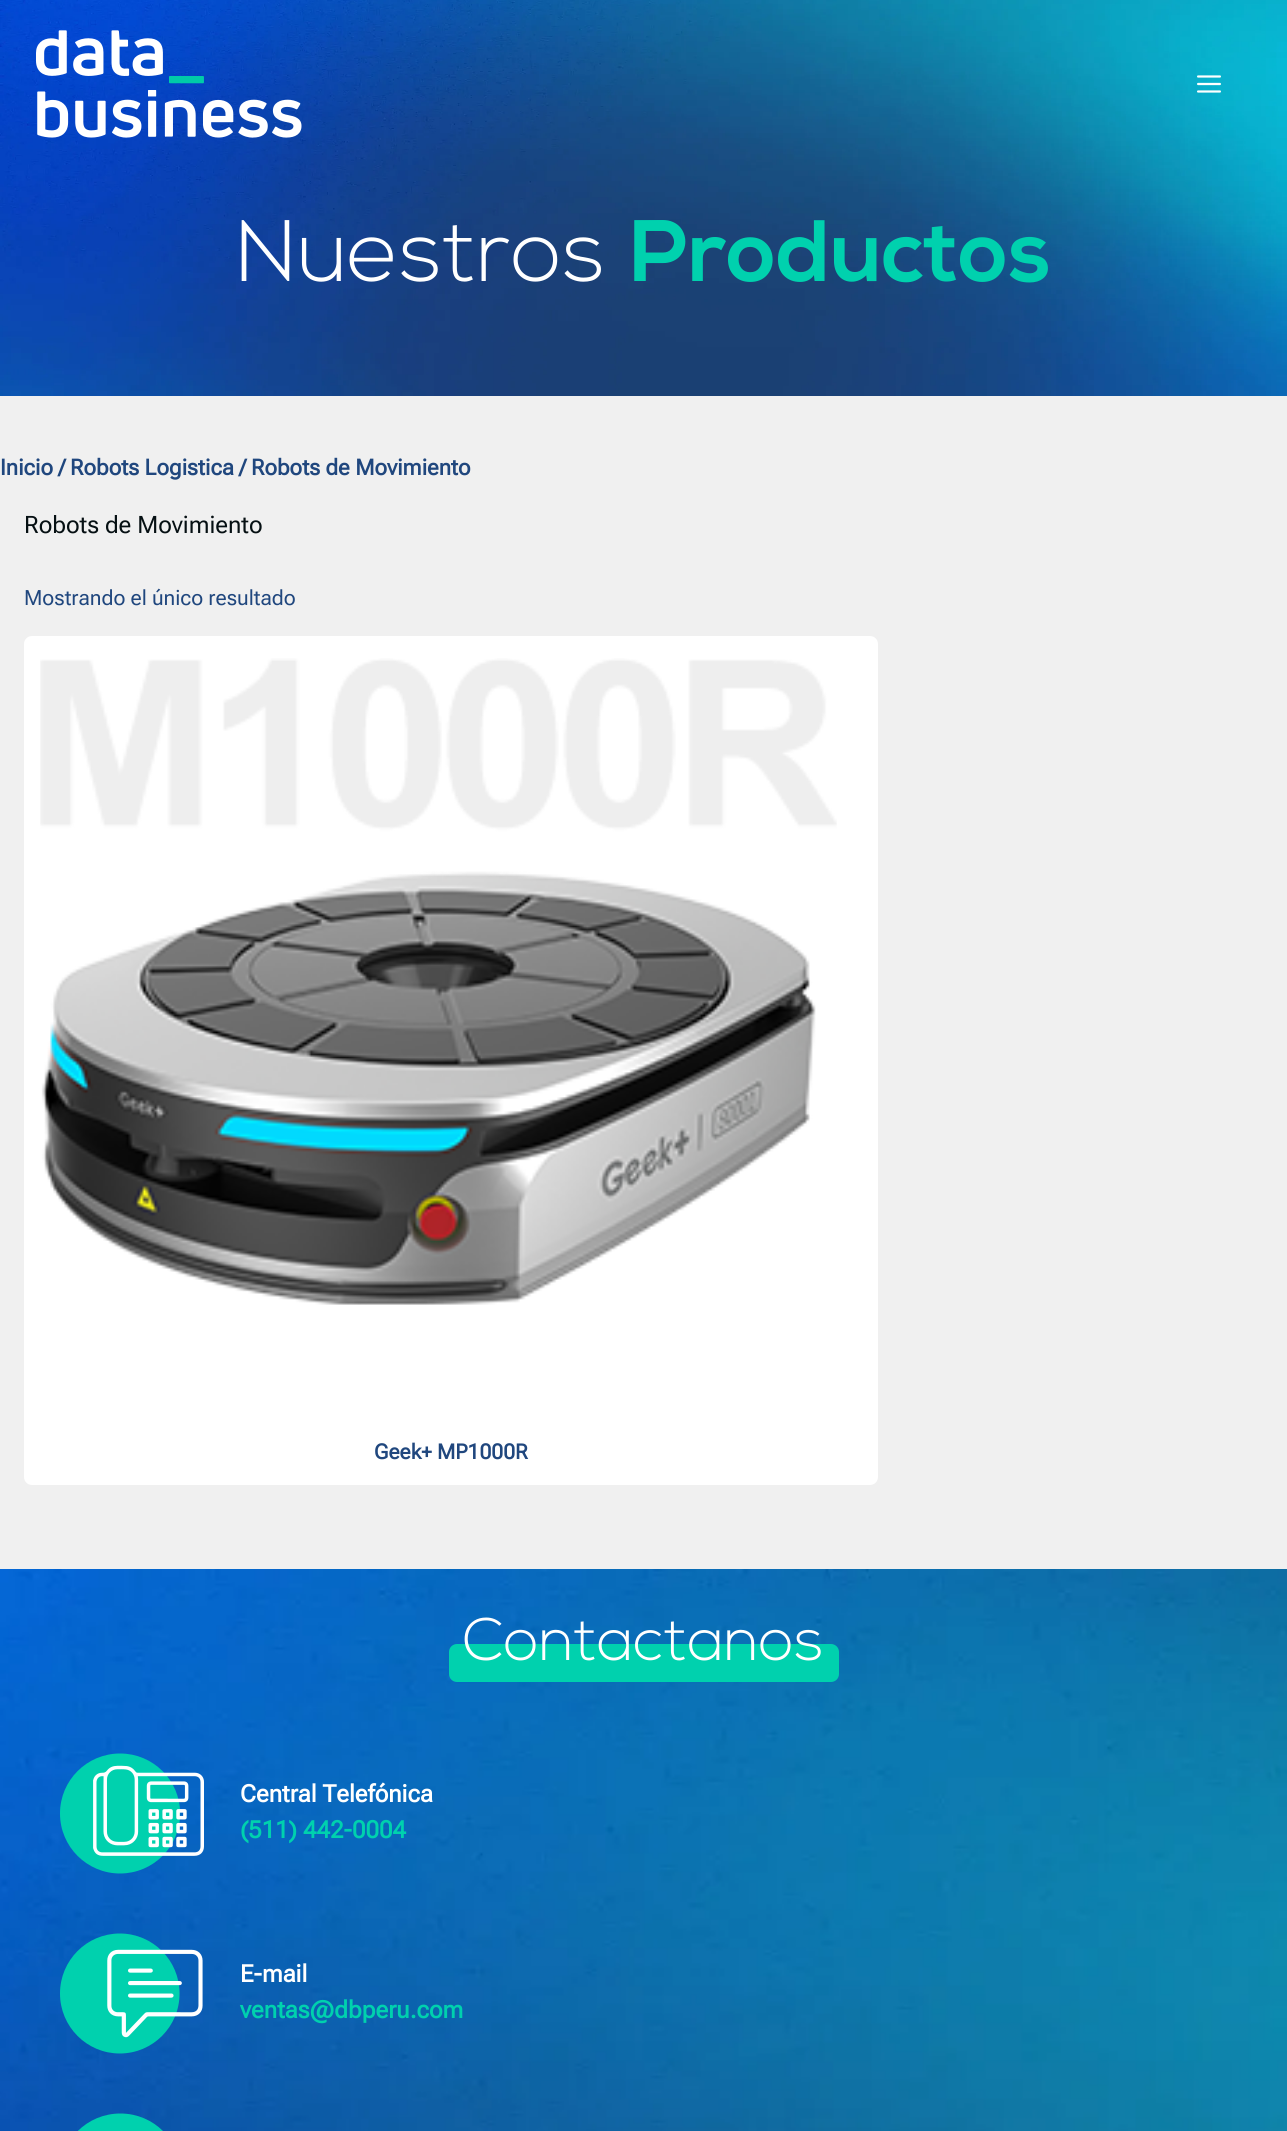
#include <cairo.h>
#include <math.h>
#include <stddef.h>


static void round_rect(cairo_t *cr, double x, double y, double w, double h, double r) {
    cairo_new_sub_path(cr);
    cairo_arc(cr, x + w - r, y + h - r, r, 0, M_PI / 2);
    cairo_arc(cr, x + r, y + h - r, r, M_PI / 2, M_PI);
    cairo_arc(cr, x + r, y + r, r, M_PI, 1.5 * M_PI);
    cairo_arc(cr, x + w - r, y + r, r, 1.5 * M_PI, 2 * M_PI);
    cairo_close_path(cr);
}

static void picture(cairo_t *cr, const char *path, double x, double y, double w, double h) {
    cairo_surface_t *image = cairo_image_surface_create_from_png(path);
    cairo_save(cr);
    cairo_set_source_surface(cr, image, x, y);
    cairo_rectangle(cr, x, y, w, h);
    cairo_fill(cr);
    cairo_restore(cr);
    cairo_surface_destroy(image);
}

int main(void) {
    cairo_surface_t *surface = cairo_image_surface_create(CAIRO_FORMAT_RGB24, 1287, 2131);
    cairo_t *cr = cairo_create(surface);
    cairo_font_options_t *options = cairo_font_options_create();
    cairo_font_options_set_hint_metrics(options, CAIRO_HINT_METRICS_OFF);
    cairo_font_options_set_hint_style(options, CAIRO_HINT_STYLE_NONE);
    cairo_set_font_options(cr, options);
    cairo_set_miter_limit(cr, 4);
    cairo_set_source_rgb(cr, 0.941, 0.941, 0.941);
    cairo_paint(cr);
    picture(cr, "img3.png", 0, 0, 1287, 396);
    picture(cr, "img1.png", 36, 30, 266, 108);
    picture(cr, "img2.png", 1197, 75, 24, 18);
    cairo_select_font_face(cr, "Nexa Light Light", CAIRO_FONT_SLANT_NORMAL, CAIRO_FONT_WEIGHT_NORMAL);
    cairo_set_font_size(cr, 87);
    cairo_set_source_rgb(cr, 1, 1, 1);
    cairo_move_to(cr, 236, 281);
    cairo_show_text(cr, "Nuestros");
    cairo_select_font_face(cr, "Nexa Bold", CAIRO_FONT_SLANT_NORMAL, CAIRO_FONT_WEIGHT_BOLD);
    cairo_set_source_rgb(cr, 0, 0.82, 0.682);
    cairo_move_to(cr, 630, 281);
    cairo_show_text(cr, "Productos");
    cairo_select_font_face(cr, "Roboto Flex", CAIRO_FONT_SLANT_NORMAL, CAIRO_FONT_WEIGHT_BOLD);
    cairo_set_font_size(cr, 22.1);
    cairo_set_source_rgb(cr, 0.125, 0.278, 0.494);
    cairo_move_to(cr, 0, 475);
    cairo_show_text(cr, "Inicio / Robots Logistica / Robots de Movimiento");
    cairo_select_font_face(cr, "Roboto Flex", CAIRO_FONT_SLANT_NORMAL, CAIRO_FONT_WEIGHT_NORMAL);
    cairo_set_font_size(cr, 24);
    cairo_set_source_rgb(cr, 0.027, 0.063, 0.075);
    cairo_move_to(cr, 24, 533);
    cairo_show_text(cr, "Robots de Movimiento");
    cairo_set_font_size(cr, 21);
    cairo_set_source_rgb(cr, 0.125, 0.278, 0.494);
    cairo_move_to(cr, 24, 605);
    cairo_show_text(cr, "Mostrando el único resultado");
    cairo_set_source_rgb(cr, 1, 1, 1);
    round_rect(cr, 24, 636, 854, 849, 8);
    cairo_fill(cr);
    picture(cr, "img4.png", 40, 658, 797, 647);
    cairo_select_font_face(cr, "Roboto Flex", CAIRO_FONT_SLANT_NORMAL, CAIRO_FONT_WEIGHT_BOLD);
    cairo_set_source_rgb(cr, 0.125, 0.278, 0.494);
    cairo_move_to(cr, 374, 1459);
    cairo_show_text(cr, "Geek+ MP1000R");
    picture(cr, "img5.png", 0, 1569, 1287, 562);
    cairo_set_source_rgb(cr, 0, 0.82, 0.682);
    round_rect(cr, 449, 1644, 390, 38, 8);
    cairo_fill(cr);
    cairo_select_font_face(cr, "Nexa Light Light", CAIRO_FONT_SLANT_NORMAL, CAIRO_FONT_WEIGHT_NORMAL);
    cairo_set_font_size(cr, 60);
    cairo_set_source_rgb(cr, 1, 1, 1);
    cairo_move_to(cr, 463, 1660);
    cairo_show_text(cr, "Contactanos");
    picture(cr, "img6.png", 60, 1753, 144, 121);
    cairo_select_font_face(cr, "Roboto Flex", CAIRO_FONT_SLANT_NORMAL, CAIRO_FONT_WEIGHT_BOLD);
    cairo_set_font_size(cr, 24);
    cairo_move_to(cr, 240, 1802);
    cairo_show_text(cr, "Central Telefónica");
    cairo_set_source_rgb(cr, 0, 0.82, 0.682);
    cairo_move_to(cr, 240, 1838);
    cairo_show_text(cr, "(511) 442-0004");
    picture(cr, "img7.png", 60, 1933, 143, 121);
    cairo_set_source_rgb(cr, 1, 1, 1);
    cairo_move_to(cr, 240, 1982);
    cairo_show_text(cr, "E-mail");
    cairo_set_source_rgb(cr, 0, 0.82, 0.682);
    cairo_move_to(cr, 240, 2018);
    cairo_show_text(cr, "ventas@dbperu.com");
    picture(cr, "img8.png", 78, 2113, 85, 18);
    cairo_surface_write_to_png(surface, "page.png");
    cairo_font_options_destroy(options);
    cairo_destroy(cr);
    cairo_surface_destroy(surface);
    return 0;
}
